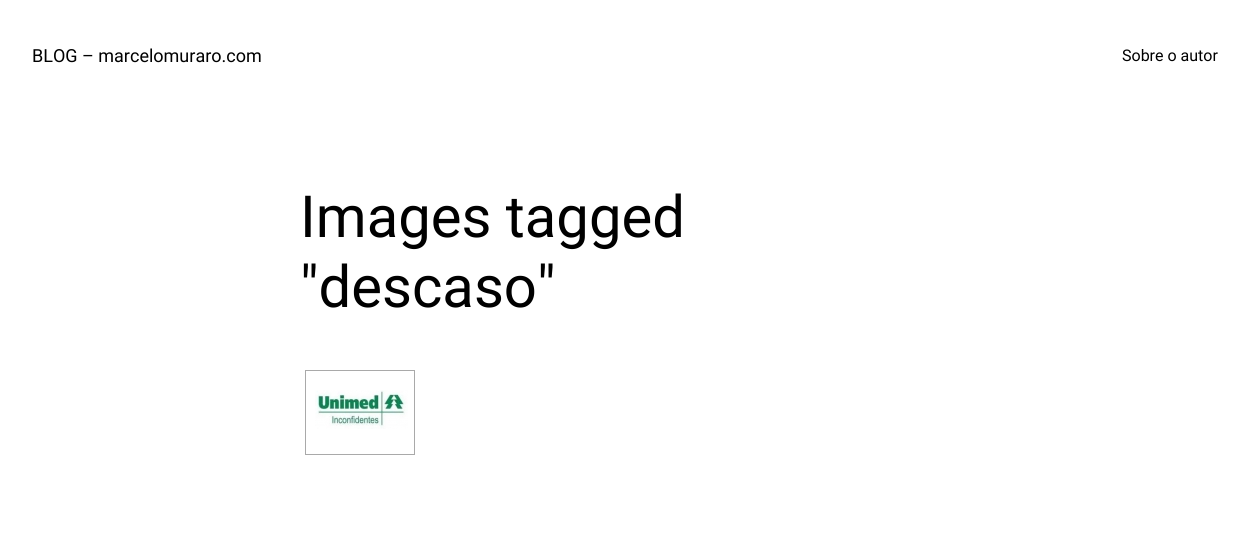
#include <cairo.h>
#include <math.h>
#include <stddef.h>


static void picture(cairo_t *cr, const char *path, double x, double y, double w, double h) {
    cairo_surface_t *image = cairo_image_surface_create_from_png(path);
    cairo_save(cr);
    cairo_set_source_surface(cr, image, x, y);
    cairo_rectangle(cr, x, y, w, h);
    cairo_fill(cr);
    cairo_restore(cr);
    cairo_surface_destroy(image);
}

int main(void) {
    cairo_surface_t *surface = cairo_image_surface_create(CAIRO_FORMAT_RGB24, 1250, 560);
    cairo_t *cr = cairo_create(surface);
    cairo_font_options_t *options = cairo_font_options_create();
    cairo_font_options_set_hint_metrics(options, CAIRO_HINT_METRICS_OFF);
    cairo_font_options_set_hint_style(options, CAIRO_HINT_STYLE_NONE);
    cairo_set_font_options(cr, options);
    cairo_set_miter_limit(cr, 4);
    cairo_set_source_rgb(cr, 1, 1, 1);
    cairo_paint(cr);
    cairo_select_font_face(cr, "Roboto", CAIRO_FONT_SLANT_NORMAL, CAIRO_FONT_WEIGHT_NORMAL);
    cairo_set_font_size(cr, 18);
    cairo_set_source_rgb(cr, 0, 0, 0);
    cairo_move_to(cr, 32, 62);
    cairo_show_text(cr, "BLOG – marcelomuraro.com");
    cairo_set_font_size(cr, 16);
    cairo_move_to(cr, 1122, 61);
    cairo_show_text(cr, "Sobre o autor");
    cairo_set_font_size(cr, 58);
    cairo_move_to(cr, 300, 237);
    cairo_show_text(cr, "Images tagged");
    cairo_move_to(cr, 300, 307);
    cairo_show_text(cr, "\"descaso\"");
    cairo_rectangle(cr, 305.5, 370.5, 109, 84);
    cairo_set_source_rgb(cr, 0.663, 0.663, 0.663);
    cairo_set_line_width(cr, 1);
    cairo_stroke(cr);
    picture(cr, "img1.png", 315, 390, 93, 39);
    cairo_surface_write_to_png(surface, "page.png");
    cairo_font_options_destroy(options);
    cairo_destroy(cr);
    cairo_surface_destroy(surface);
    return 0;
}
